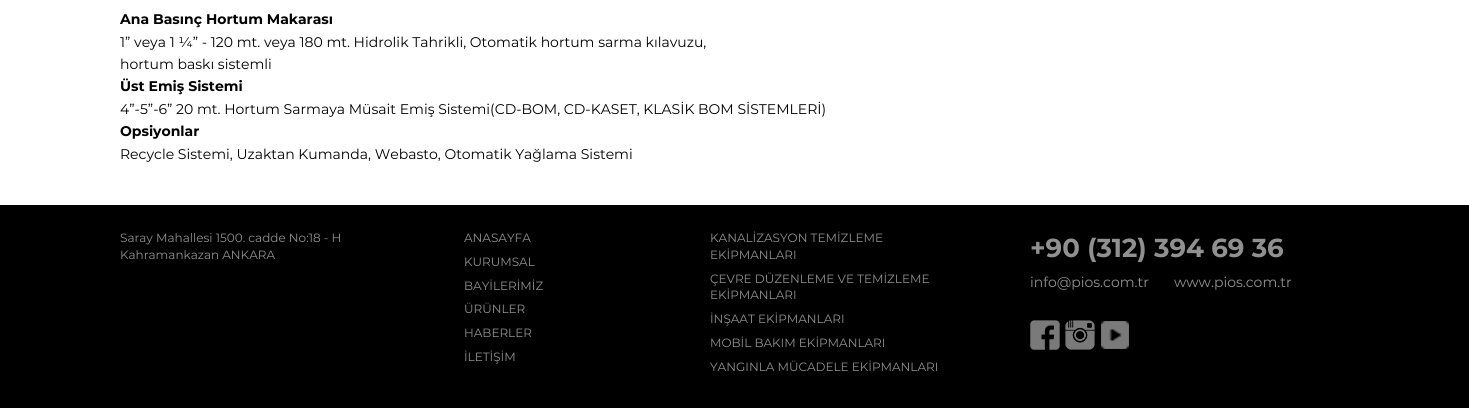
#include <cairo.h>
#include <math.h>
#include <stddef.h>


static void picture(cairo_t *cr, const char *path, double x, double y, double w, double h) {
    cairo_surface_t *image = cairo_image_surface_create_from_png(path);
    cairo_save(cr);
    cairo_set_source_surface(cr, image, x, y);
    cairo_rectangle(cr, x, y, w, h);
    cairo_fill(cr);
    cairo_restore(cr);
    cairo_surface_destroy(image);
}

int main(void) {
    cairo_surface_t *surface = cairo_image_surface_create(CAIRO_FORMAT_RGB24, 1469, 408);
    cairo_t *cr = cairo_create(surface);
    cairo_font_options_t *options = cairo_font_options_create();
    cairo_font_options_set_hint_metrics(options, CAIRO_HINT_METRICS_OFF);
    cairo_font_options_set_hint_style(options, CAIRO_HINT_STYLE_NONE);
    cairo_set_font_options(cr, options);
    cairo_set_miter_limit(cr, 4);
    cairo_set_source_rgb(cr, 1, 1, 1);
    cairo_paint(cr);
    cairo_select_font_face(cr, "Montserrat", CAIRO_FONT_SLANT_NORMAL, CAIRO_FONT_WEIGHT_BOLD);
    cairo_set_font_size(cr, 14);
    cairo_set_source_rgb(cr, 0, 0, 0);
    cairo_move_to(cr, 120, 24);
    cairo_show_text(cr, "Ana Basınç Hortum Makarası");
    cairo_select_font_face(cr, "Montserrat", CAIRO_FONT_SLANT_NORMAL, CAIRO_FONT_WEIGHT_NORMAL);
    cairo_move_to(cr, 120, 47);
    cairo_show_text(cr, "1” veya 1 ¼” - 120 mt. veya 180 mt. Hidrolik Tahrikli, Otomatik hortum sarma kılavuzu,");
    cairo_move_to(cr, 120, 69);
    cairo_show_text(cr, "hortum baskı sistemli");
    cairo_select_font_face(cr, "Montserrat", CAIRO_FONT_SLANT_NORMAL, CAIRO_FONT_WEIGHT_BOLD);
    cairo_move_to(cr, 120, 91);
    cairo_show_text(cr, "Üst Emiş Sistemi");
    cairo_select_font_face(cr, "Montserrat", CAIRO_FONT_SLANT_NORMAL, CAIRO_FONT_WEIGHT_NORMAL);
    cairo_move_to(cr, 120, 114);
    cairo_show_text(cr, "4”-5”-6” 20 mt. Hortum Sarmaya Müsait Emiş Sistemi(CD-BOM, CD-KASET, KLASİK BOM SİSTEMLERİ)");
    cairo_select_font_face(cr, "Montserrat", CAIRO_FONT_SLANT_NORMAL, CAIRO_FONT_WEIGHT_BOLD);
    cairo_move_to(cr, 120, 136);
    cairo_show_text(cr, "Opsiyonlar");
    cairo_select_font_face(cr, "Montserrat", CAIRO_FONT_SLANT_NORMAL, CAIRO_FONT_WEIGHT_NORMAL);
    cairo_move_to(cr, 120, 159);
    cairo_show_text(cr, "Recycle Sistemi, Uzaktan Kumanda, Webasto, Otomatik Yağlama Sistemi");
    cairo_rectangle(cr, 0, 205, 1469, 203);
    cairo_fill(cr);
    cairo_set_font_size(cr, 12);
    cairo_set_source_rgb(cr, 0.565, 0.565, 0.565);
    cairo_move_to(cr, 120, 242);
    cairo_show_text(cr, "Saray Mahallesi 1500. cadde No:18 - H");
    cairo_move_to(cr, 120, 259);
    cairo_show_text(cr, "Kahramankazan ANKARA");
    cairo_move_to(cr, 464, 242);
    cairo_show_text(cr, "ANASAYFA");
    cairo_move_to(cr, 464, 266);
    cairo_show_text(cr, "KURUMSAL");
    cairo_move_to(cr, 464, 290);
    cairo_show_text(cr, "BAYİLERİMİZ");
    cairo_move_to(cr, 464, 313);
    cairo_show_text(cr, "ÜRÜNLER");
    cairo_move_to(cr, 464, 337);
    cairo_show_text(cr, "HABERLER");
    cairo_move_to(cr, 464, 361);
    cairo_show_text(cr, "İLETİŞİM");
    cairo_move_to(cr, 710, 242);
    cairo_show_text(cr, "KANALİZASYON TEMİZLEME");
    cairo_move_to(cr, 710, 259);
    cairo_show_text(cr, "EKİPMANLARI");
    cairo_move_to(cr, 710, 283);
    cairo_show_text(cr, "ÇEVRE DÜZENLEME VE TEMİZLEME");
    cairo_move_to(cr, 710, 299);
    cairo_show_text(cr, "EKİPMANLARI");
    cairo_move_to(cr, 710, 323);
    cairo_show_text(cr, "İNŞAAT EKİPMANLARI");
    cairo_move_to(cr, 710, 347);
    cairo_show_text(cr, "MOBİL BAKIM EKİPMANLARI");
    cairo_move_to(cr, 710, 371);
    cairo_show_text(cr, "YANGINLA MÜCADELE EKİPMANLARI");
    cairo_select_font_face(cr, "Montserrat", CAIRO_FONT_SLANT_NORMAL, CAIRO_FONT_WEIGHT_BOLD);
    cairo_set_font_size(cr, 26);
    cairo_move_to(cr, 1030, 257);
    cairo_show_text(cr, "+90 (312) 394 69 36");
    cairo_select_font_face(cr, "Montserrat", CAIRO_FONT_SLANT_NORMAL, CAIRO_FONT_WEIGHT_NORMAL);
    cairo_set_font_size(cr, 14);
    cairo_move_to(cr, 1030, 287);
    cairo_show_text(cr, "info@pios.com.tr");
    cairo_move_to(cr, 1174, 287);
    cairo_show_text(cr, "www.pios.com.tr");
    picture(cr, "img1.png", 1030, 320, 30, 30);
    picture(cr, "img2.png", 1065, 320, 30, 30);
    picture(cr, "img3.png", 1101, 321, 28, 28);
    cairo_surface_write_to_png(surface, "page.png");
    cairo_font_options_destroy(options);
    cairo_destroy(cr);
    cairo_surface_destroy(surface);
    return 0;
}
